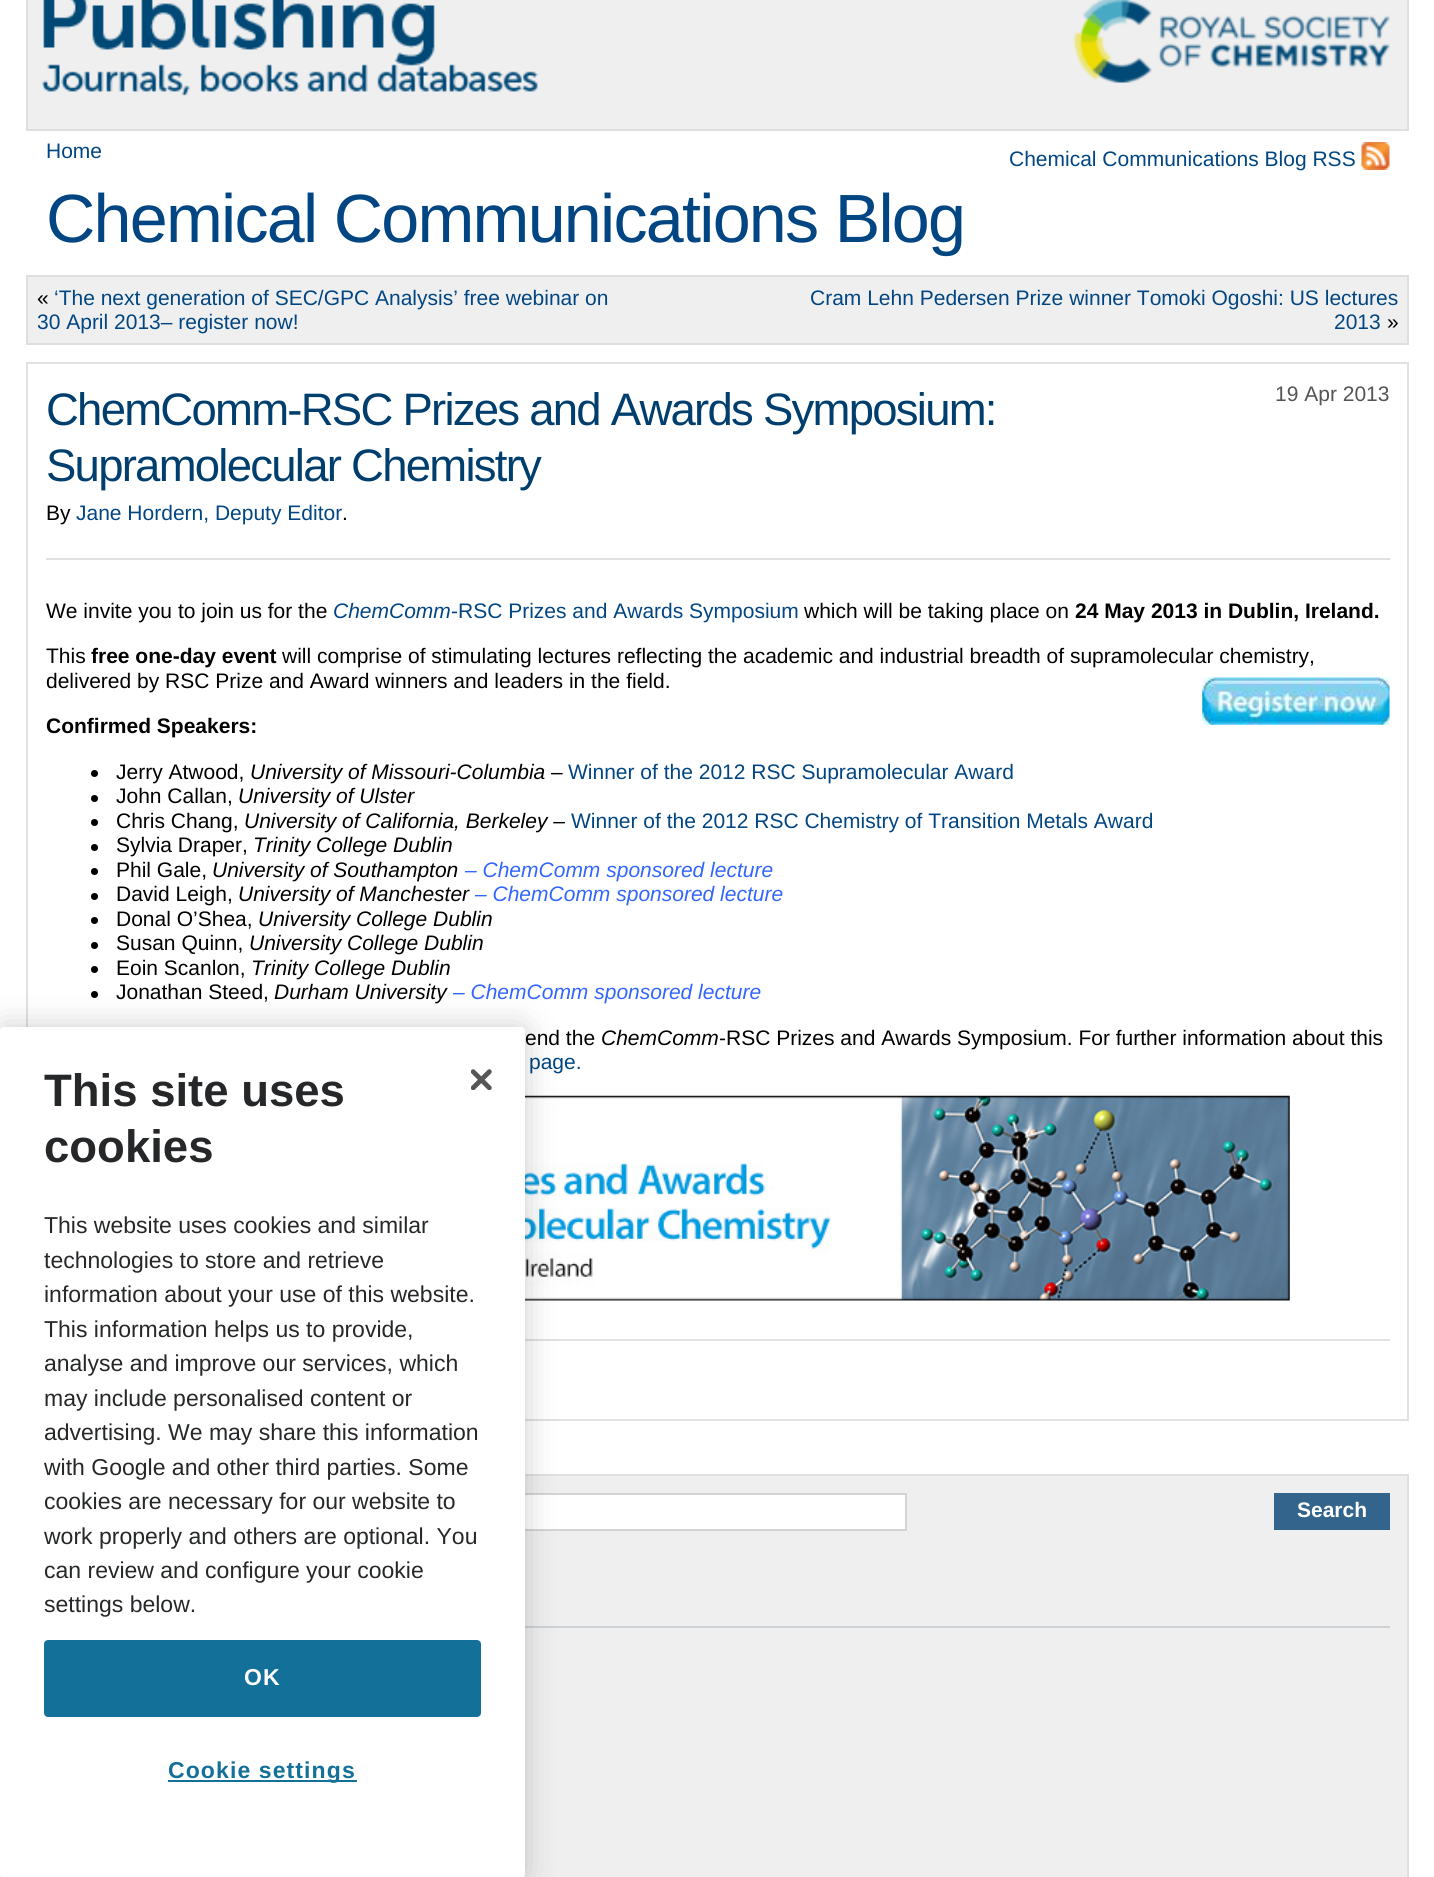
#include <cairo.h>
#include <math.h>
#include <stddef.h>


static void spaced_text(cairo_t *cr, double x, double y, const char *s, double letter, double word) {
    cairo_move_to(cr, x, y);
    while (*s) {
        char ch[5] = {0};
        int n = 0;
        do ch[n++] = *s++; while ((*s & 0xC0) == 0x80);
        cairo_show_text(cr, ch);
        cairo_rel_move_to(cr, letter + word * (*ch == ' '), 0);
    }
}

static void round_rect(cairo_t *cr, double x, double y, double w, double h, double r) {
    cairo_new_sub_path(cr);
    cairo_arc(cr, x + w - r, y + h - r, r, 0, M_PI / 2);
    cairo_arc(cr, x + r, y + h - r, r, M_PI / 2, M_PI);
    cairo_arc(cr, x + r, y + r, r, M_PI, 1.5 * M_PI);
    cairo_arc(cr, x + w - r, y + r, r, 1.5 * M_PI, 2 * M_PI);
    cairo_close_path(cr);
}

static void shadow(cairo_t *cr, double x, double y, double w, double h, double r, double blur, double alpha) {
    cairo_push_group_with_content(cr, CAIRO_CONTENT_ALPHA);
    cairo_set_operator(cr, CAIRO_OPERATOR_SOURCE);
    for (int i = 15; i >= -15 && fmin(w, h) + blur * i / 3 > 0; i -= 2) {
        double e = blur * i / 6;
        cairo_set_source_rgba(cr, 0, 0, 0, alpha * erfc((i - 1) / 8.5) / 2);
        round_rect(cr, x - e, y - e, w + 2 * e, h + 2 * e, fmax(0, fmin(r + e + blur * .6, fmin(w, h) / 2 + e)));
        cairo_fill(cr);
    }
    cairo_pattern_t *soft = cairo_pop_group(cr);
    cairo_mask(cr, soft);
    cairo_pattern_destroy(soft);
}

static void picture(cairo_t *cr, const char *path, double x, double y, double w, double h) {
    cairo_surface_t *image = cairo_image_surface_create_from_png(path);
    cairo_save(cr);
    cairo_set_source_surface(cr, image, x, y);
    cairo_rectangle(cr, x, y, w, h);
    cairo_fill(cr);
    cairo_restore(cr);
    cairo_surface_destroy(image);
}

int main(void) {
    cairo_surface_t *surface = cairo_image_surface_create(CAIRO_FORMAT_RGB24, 1434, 1877);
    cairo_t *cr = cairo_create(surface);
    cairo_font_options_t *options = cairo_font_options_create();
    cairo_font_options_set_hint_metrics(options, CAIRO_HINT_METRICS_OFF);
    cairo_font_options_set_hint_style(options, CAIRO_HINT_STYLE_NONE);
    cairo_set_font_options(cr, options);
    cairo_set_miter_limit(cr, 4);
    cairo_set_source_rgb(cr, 1, 1, 1);
    cairo_paint(cr);
    cairo_set_source_rgb(cr, 0.937, 0.937, 0.937);
    cairo_rectangle(cr, 27, -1, 1381, 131);
    cairo_fill_preserve(cr);
    cairo_set_source_rgb(cr, 0.875, 0.875, 0.875);
    cairo_stroke(cr);
    picture(cr, "img1.png", 41, 0, 497, 96);
    picture(cr, "img2.png", 1074, 0, 316, 83);
    cairo_select_font_face(cr, "Liberation Sans", CAIRO_FONT_SLANT_NORMAL, CAIRO_FONT_WEIGHT_NORMAL);
    cairo_set_font_size(cr, 21);
    cairo_set_source_rgb(cr, 0.004, 0.275, 0.51);
    cairo_move_to(cr, 46, 158);
    cairo_show_text(cr, "Home");
    cairo_move_to(cr, 1009, 166);
    cairo_show_text(cr, "Chemical Communications Blog RSS");
    picture(cr, "img3.png", 1361, 142, 29, 28);
    cairo_set_font_size(cr, 68.25);
    spaced_text(cr, 46, 242, "Chemical Communications Blog", -1.75, 0);
    cairo_set_source_rgb(cr, 0.937, 0.937, 0.937);
    cairo_rectangle(cr, 27, 276, 1381, 68);
    cairo_fill_preserve(cr);
    cairo_set_source_rgb(cr, 0.875, 0.875, 0.875);
    cairo_stroke(cr);
    cairo_set_font_size(cr, 21);
    cairo_set_source_rgb(cr, 0, 0, 0);
    cairo_move_to(cr, 37, 305);
    cairo_show_text(cr, "«");
    cairo_set_source_rgb(cr, 0.004, 0.275, 0.51);
    cairo_move_to(cr, 54, 305);
    cairo_show_text(cr, "‘The next generation of SEC/GPC Analysis’ free webinar on");
    cairo_move_to(cr, 37, 329);
    cairo_show_text(cr, "30 April 2013– register now!");
    cairo_move_to(cr, 810, 305);
    cairo_show_text(cr, "Cram Lehn Pedersen Prize winner Tomoki Ogoshi: US lectures");
    cairo_move_to(cr, 1334, 329);
    cairo_show_text(cr, "2013");
    cairo_set_source_rgb(cr, 0, 0, 0);
    cairo_move_to(cr, 1387, 329);
    cairo_show_text(cr, "»");
    cairo_rectangle(cr, 27, 363, 1381, 1057);
    cairo_set_source_rgb(cr, 0.882, 0.882, 0.882);
    cairo_stroke(cr);
    cairo_set_font_size(cr, 45.5);
    cairo_set_source_rgb(cr, 0, 0.243, 0.431);
    spaced_text(cr, 46, 425, "ChemComm-RSC Prizes and Awards Symposium:", -1.75, 0);
    spaced_text(cr, 46, 481, "Supramolecular Chemistry", -1.75, 0);
    cairo_set_font_size(cr, 21);
    cairo_set_source_rgb(cr, 0.333, 0.333, 0.333);
    cairo_move_to(cr, 1275, 401);
    cairo_show_text(cr, "19 Apr 2013");
    cairo_set_source_rgb(cr, 0, 0, 0);
    cairo_move_to(cr, 46, 520);
    cairo_show_text(cr, "By");
    cairo_set_source_rgb(cr, 0.004, 0.275, 0.51);
    cairo_move_to(cr, 76, 520);
    cairo_show_text(cr, "Jane Hordern, Deputy Editor");
    cairo_set_source_rgb(cr, 0, 0, 0);
    cairo_move_to(cr, 342, 520);
    cairo_show_text(cr, ".");
    cairo_set_source_rgb(cr, 0.882, 0.882, 0.882);
    cairo_rectangle(cr, 46, 558, 1344, 2);
    cairo_fill(cr);
    cairo_rectangle(cr, 525, 1339, 865, 2);
    cairo_fill(cr);
    cairo_set_source_rgb(cr, 0, 0, 0);
    cairo_move_to(cr, 46, 618);
    cairo_show_text(cr, "We invite you to join us for the");
    cairo_select_font_face(cr, "Liberation Sans", CAIRO_FONT_SLANT_ITALIC, CAIRO_FONT_WEIGHT_NORMAL);
    cairo_set_source_rgb(cr, 0.004, 0.275, 0.51);
    cairo_move_to(cr, 333, 618);
    cairo_show_text(cr, "ChemComm");
    cairo_select_font_face(cr, "Liberation Sans", CAIRO_FONT_SLANT_NORMAL, CAIRO_FONT_WEIGHT_NORMAL);
    cairo_move_to(cr, 451, 618);
    cairo_show_text(cr, "-RSC Prizes and Awards Symposium");
    cairo_set_source_rgb(cr, 0, 0, 0);
    cairo_move_to(cr, 804, 618);
    cairo_show_text(cr, "which will be taking place on");
    cairo_select_font_face(cr, "Liberation Sans", CAIRO_FONT_SLANT_NORMAL, CAIRO_FONT_WEIGHT_BOLD);
    cairo_move_to(cr, 1075, 618);
    cairo_show_text(cr, "24 May 2013 in Dublin, Ireland.");
    cairo_select_font_face(cr, "Liberation Sans", CAIRO_FONT_SLANT_NORMAL, CAIRO_FONT_WEIGHT_NORMAL);
    cairo_move_to(cr, 46, 663);
    cairo_show_text(cr, "This");
    cairo_select_font_face(cr, "Liberation Sans", CAIRO_FONT_SLANT_NORMAL, CAIRO_FONT_WEIGHT_BOLD);
    cairo_move_to(cr, 91, 663);
    cairo_show_text(cr, "free one-day event");
    cairo_select_font_face(cr, "Liberation Sans", CAIRO_FONT_SLANT_NORMAL, CAIRO_FONT_WEIGHT_NORMAL);
    cairo_move_to(cr, 282, 663);
    cairo_show_text(cr, "will comprise of stimulating lectures reflecting the academic and industrial breadth of supramolecular chemistry,");
    cairo_move_to(cr, 46, 688);
    cairo_show_text(cr, "delivered by RSC Prize and Award winners and leaders in the field.");
    picture(cr, "img4.png", 1202, 677, 188, 48);
    cairo_select_font_face(cr, "Liberation Sans", CAIRO_FONT_SLANT_NORMAL, CAIRO_FONT_WEIGHT_BOLD);
    cairo_move_to(cr, 46, 733);
    cairo_show_text(cr, "Confirmed Speakers:");
    cairo_new_path(cr);
    cairo_arc(cr, 94.5, 773.5, 3.5, 0, 2 * M_PI);
    cairo_fill(cr);
    cairo_select_font_face(cr, "Liberation Sans", CAIRO_FONT_SLANT_NORMAL, CAIRO_FONT_WEIGHT_NORMAL);
    cairo_move_to(cr, 116, 779);
    cairo_show_text(cr, "Jerry Atwood,");
    cairo_select_font_face(cr, "Liberation Sans", CAIRO_FONT_SLANT_ITALIC, CAIRO_FONT_WEIGHT_NORMAL);
    cairo_move_to(cr, 250, 779);
    cairo_show_text(cr, "University of Missouri-Columbia –");
    cairo_select_font_face(cr, "Liberation Sans", CAIRO_FONT_SLANT_NORMAL, CAIRO_FONT_WEIGHT_NORMAL);
    cairo_set_source_rgb(cr, 0.004, 0.275, 0.51);
    cairo_move_to(cr, 568, 779);
    cairo_show_text(cr, "Winner of the 2012 RSC Supramolecular Award");
    cairo_set_source_rgb(cr, 0, 0, 0);
    cairo_new_path(cr);
    cairo_arc(cr, 94.5, 798.5, 3.5, 0, 2 * M_PI);
    cairo_fill(cr);
    cairo_move_to(cr, 116, 803);
    cairo_show_text(cr, "John Callan,");
    cairo_select_font_face(cr, "Liberation Sans", CAIRO_FONT_SLANT_ITALIC, CAIRO_FONT_WEIGHT_NORMAL);
    cairo_move_to(cr, 238, 803);
    cairo_show_text(cr, "University of Ulster");
    cairo_new_path(cr);
    cairo_arc(cr, 94.5, 822.5, 3.5, 0, 2 * M_PI);
    cairo_fill(cr);
    cairo_select_font_face(cr, "Liberation Sans", CAIRO_FONT_SLANT_NORMAL, CAIRO_FONT_WEIGHT_NORMAL);
    cairo_move_to(cr, 116, 828);
    cairo_show_text(cr, "Chris Chang,");
    cairo_select_font_face(cr, "Liberation Sans", CAIRO_FONT_SLANT_ITALIC, CAIRO_FONT_WEIGHT_NORMAL);
    cairo_move_to(cr, 244, 828);
    cairo_show_text(cr, "University of California, Berkeley –");
    cairo_select_font_face(cr, "Liberation Sans", CAIRO_FONT_SLANT_NORMAL, CAIRO_FONT_WEIGHT_NORMAL);
    cairo_set_source_rgb(cr, 0.004, 0.275, 0.51);
    cairo_move_to(cr, 571, 828);
    cairo_show_text(cr, "Winner of the 2012 RSC Chemistry of Transition Metals Award");
    cairo_set_source_rgb(cr, 0, 0, 0);
    cairo_new_path(cr);
    cairo_arc(cr, 94.5, 847.5, 3.5, 0, 2 * M_PI);
    cairo_fill(cr);
    cairo_move_to(cr, 116, 852);
    cairo_show_text(cr, "Sylvia Draper,");
    cairo_select_font_face(cr, "Liberation Sans", CAIRO_FONT_SLANT_ITALIC, CAIRO_FONT_WEIGHT_NORMAL);
    cairo_move_to(cr, 253, 852);
    cairo_show_text(cr, "Trinity College Dublin");
    cairo_new_path(cr);
    cairo_arc(cr, 94.5, 871.5, 3.5, 0, 2 * M_PI);
    cairo_fill(cr);
    cairo_select_font_face(cr, "Liberation Sans", CAIRO_FONT_SLANT_NORMAL, CAIRO_FONT_WEIGHT_NORMAL);
    cairo_move_to(cr, 116, 877);
    cairo_show_text(cr, "Phil Gale,");
    cairo_select_font_face(cr, "Liberation Sans", CAIRO_FONT_SLANT_ITALIC, CAIRO_FONT_WEIGHT_NORMAL);
    cairo_move_to(cr, 212, 877);
    cairo_show_text(cr, "University of Southampton");
    cairo_set_source_rgb(cr, 0.2, 0.4, 1);
    cairo_move_to(cr, 465, 877);
    cairo_show_text(cr, "– ChemComm sponsored lecture");
    cairo_set_source_rgb(cr, 0, 0, 0);
    cairo_new_path(cr);
    cairo_arc(cr, 94.5, 896.5, 3.5, 0, 2 * M_PI);
    cairo_fill(cr);
    cairo_select_font_face(cr, "Liberation Sans", CAIRO_FONT_SLANT_NORMAL, CAIRO_FONT_WEIGHT_NORMAL);
    cairo_move_to(cr, 116, 901);
    cairo_show_text(cr, "David Leigh,");
    cairo_select_font_face(cr, "Liberation Sans", CAIRO_FONT_SLANT_ITALIC, CAIRO_FONT_WEIGHT_NORMAL);
    cairo_move_to(cr, 238, 901);
    cairo_show_text(cr, "University of Manchester");
    cairo_set_source_rgb(cr, 0.2, 0.4, 1);
    cairo_move_to(cr, 475, 901);
    cairo_show_text(cr, "– ChemComm sponsored lecture");
    cairo_set_source_rgb(cr, 0, 0, 0);
    cairo_new_path(cr);
    cairo_arc(cr, 94.5, 920.5, 3.5, 0, 2 * M_PI);
    cairo_fill(cr);
    cairo_select_font_face(cr, "Liberation Sans", CAIRO_FONT_SLANT_NORMAL, CAIRO_FONT_WEIGHT_NORMAL);
    cairo_move_to(cr, 116, 926);
    cairo_show_text(cr, "Donal O’Shea,");
    cairo_select_font_face(cr, "Liberation Sans", CAIRO_FONT_SLANT_ITALIC, CAIRO_FONT_WEIGHT_NORMAL);
    cairo_move_to(cr, 258, 926);
    cairo_show_text(cr, "University College Dublin");
    cairo_new_path(cr);
    cairo_arc(cr, 94.5, 945.5, 3.5, 0, 2 * M_PI);
    cairo_fill(cr);
    cairo_select_font_face(cr, "Liberation Sans", CAIRO_FONT_SLANT_NORMAL, CAIRO_FONT_WEIGHT_NORMAL);
    cairo_move_to(cr, 116, 950);
    cairo_show_text(cr, "Susan Quinn,");
    cairo_select_font_face(cr, "Liberation Sans", CAIRO_FONT_SLANT_ITALIC, CAIRO_FONT_WEIGHT_NORMAL);
    cairo_move_to(cr, 249, 950);
    cairo_show_text(cr, "University College Dublin");
    cairo_new_path(cr);
    cairo_arc(cr, 94.5, 969.5, 3.5, 0, 2 * M_PI);
    cairo_fill(cr);
    cairo_select_font_face(cr, "Liberation Sans", CAIRO_FONT_SLANT_NORMAL, CAIRO_FONT_WEIGHT_NORMAL);
    cairo_move_to(cr, 116, 975);
    cairo_show_text(cr, "Eoin Scanlon,");
    cairo_select_font_face(cr, "Liberation Sans", CAIRO_FONT_SLANT_ITALIC, CAIRO_FONT_WEIGHT_NORMAL);
    cairo_move_to(cr, 251, 975);
    cairo_show_text(cr, "Trinity College Dublin");
    cairo_new_path(cr);
    cairo_arc(cr, 94.5, 994.5, 3.5, 0, 2 * M_PI);
    cairo_fill(cr);
    cairo_select_font_face(cr, "Liberation Sans", CAIRO_FONT_SLANT_NORMAL, CAIRO_FONT_WEIGHT_NORMAL);
    cairo_move_to(cr, 116, 999);
    cairo_show_text(cr, "Jonathan Steed,");
    cairo_select_font_face(cr, "Liberation Sans", CAIRO_FONT_SLANT_ITALIC, CAIRO_FONT_WEIGHT_NORMAL);
    cairo_move_to(cr, 274, 999);
    cairo_show_text(cr, "Durham University");
    cairo_set_source_rgb(cr, 0.2, 0.4, 1);
    cairo_move_to(cr, 453, 999);
    cairo_show_text(cr, "– ChemComm sponsored lecture");
    cairo_select_font_face(cr, "Liberation Sans", CAIRO_FONT_SLANT_NORMAL, CAIRO_FONT_WEIGHT_NORMAL);
    cairo_set_source_rgb(cr, 0, 0, 0);
    cairo_move_to(cr, 525, 1045);
    cairo_show_text(cr, "end the");
    cairo_select_font_face(cr, "Liberation Sans", CAIRO_FONT_SLANT_ITALIC, CAIRO_FONT_WEIGHT_NORMAL);
    cairo_move_to(cr, 601, 1045);
    cairo_show_text(cr, "ChemComm");
    cairo_select_font_face(cr, "Liberation Sans", CAIRO_FONT_SLANT_NORMAL, CAIRO_FONT_WEIGHT_NORMAL);
    cairo_move_to(cr, 719, 1045);
    cairo_show_text(cr, "-RSC Prizes and Awards Symposium. For further information about this");
    cairo_set_source_rgb(cr, 0.004, 0.275, 0.51);
    cairo_move_to(cr, 529, 1069);
    cairo_show_text(cr, "page.");
    picture(cr, "img5.png", 525, 1095, 765, 206);
    cairo_set_source_rgb(cr, 0.937, 0.937, 0.937);
    cairo_rectangle(cr, 523, 1476, 884, 401);
    cairo_fill(cr);
    cairo_rectangle(cr, 27, 1475, 1381, 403);
    cairo_set_source_rgb(cr, 0.875, 0.875, 0.875);
    cairo_stroke(cr);
    cairo_set_source_rgb(cr, 1, 1, 1);
    cairo_rectangle(cr, 525, 1495, 380, 34);
    cairo_fill(cr);
    cairo_rectangle(cr, 47, 1494, 859, 36);
    cairo_set_source_rgb(cr, 0.831, 0.831, 0.831);
    cairo_stroke(cr);
    cairo_set_source_rgb(cr, 0.2, 0.392, 0.545);
    cairo_rectangle(cr, 1274, 1493, 116, 37);
    cairo_fill(cr);
    cairo_select_font_face(cr, "Liberation Sans", CAIRO_FONT_SLANT_NORMAL, CAIRO_FONT_WEIGHT_BOLD);
    cairo_set_source_rgb(cr, 1, 1, 1);
    cairo_move_to(cr, 1297, 1517);
    cairo_show_text(cr, "Search");
    cairo_set_source_rgb(cr, 0.808, 0.824, 0.835);
    cairo_rectangle(cr, 525, 1626, 865, 2);
    cairo_fill(cr);
    cairo_set_source_rgb(cr, 0, 0, 0);
    shadow(cr, 0, 1027, 525, 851, 4, 16, 0.2);
    cairo_set_source_rgb(cr, 1, 1, 1);
    round_rect(cr, 0, 1027, 525, 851, 4);
    cairo_fill(cr);
    cairo_set_font_size(cr, 45.5);
    cairo_set_source_rgb(cr, 0.145, 0.153, 0.161);
    cairo_move_to(cr, 44, 1106);
    cairo_show_text(cr, "This site uses");
    cairo_move_to(cr, 44, 1162);
    cairo_show_text(cr, "cookies");
    cairo_select_font_face(cr, "Liberation Sans", CAIRO_FONT_SLANT_NORMAL, CAIRO_FONT_WEIGHT_NORMAL);
    cairo_set_font_size(cr, 23);
    cairo_move_to(cr, 44, 1233);
    cairo_show_text(cr, "This website uses cookies and similar");
    cairo_move_to(cr, 44, 1268);
    cairo_show_text(cr, "technologies to store and retrieve");
    cairo_move_to(cr, 44, 1302);
    cairo_show_text(cr, "information about your use of this website.");
    cairo_move_to(cr, 44, 1337);
    cairo_show_text(cr, "This information helps us to provide,");
    cairo_move_to(cr, 44, 1371);
    cairo_show_text(cr, "analyse and improve our services, which");
    cairo_move_to(cr, 44, 1406);
    cairo_show_text(cr, "may include personalised content or");
    cairo_move_to(cr, 44, 1440);
    cairo_show_text(cr, "advertising. We may share this information");
    cairo_move_to(cr, 44, 1475);
    cairo_show_text(cr, "with Google and other third parties. Some");
    cairo_move_to(cr, 44, 1509);
    cairo_show_text(cr, "cookies are necessary for our website to");
    cairo_move_to(cr, 44, 1544);
    cairo_show_text(cr, "work properly and others are optional. You");
    cairo_move_to(cr, 44, 1578);
    cairo_show_text(cr, "can review and configure your cookie");
    cairo_move_to(cr, 44, 1612);
    cairo_show_text(cr, "settings below.");
    picture(cr, "img6.png", 471, 1069, 21, 21);
    cairo_set_source_rgb(cr, 0.078, 0.439, 0.596);
    round_rect(cr, 45, 1641, 435, 75, 3);
    cairo_fill_preserve(cr);
    cairo_stroke(cr);
    cairo_select_font_face(cr, "Liberation Sans", CAIRO_FONT_SLANT_NORMAL, CAIRO_FONT_WEIGHT_BOLD);
    cairo_set_source_rgb(cr, 1, 1, 1);
    spaced_text(cr, 244, 1685, "OK", 1.1, 0);
    cairo_set_source_rgb(cr, 0.078, 0.439, 0.596);
    cairo_rectangle(cr, 168, 1780, 189, 2);
    cairo_fill(cr);
    spaced_text(cr, 168, 1778, "Cookie settings", 1.1, 0);
    cairo_surface_write_to_png(surface, "page.png");
    cairo_font_options_destroy(options);
    cairo_destroy(cr);
    cairo_surface_destroy(surface);
    return 0;
}
